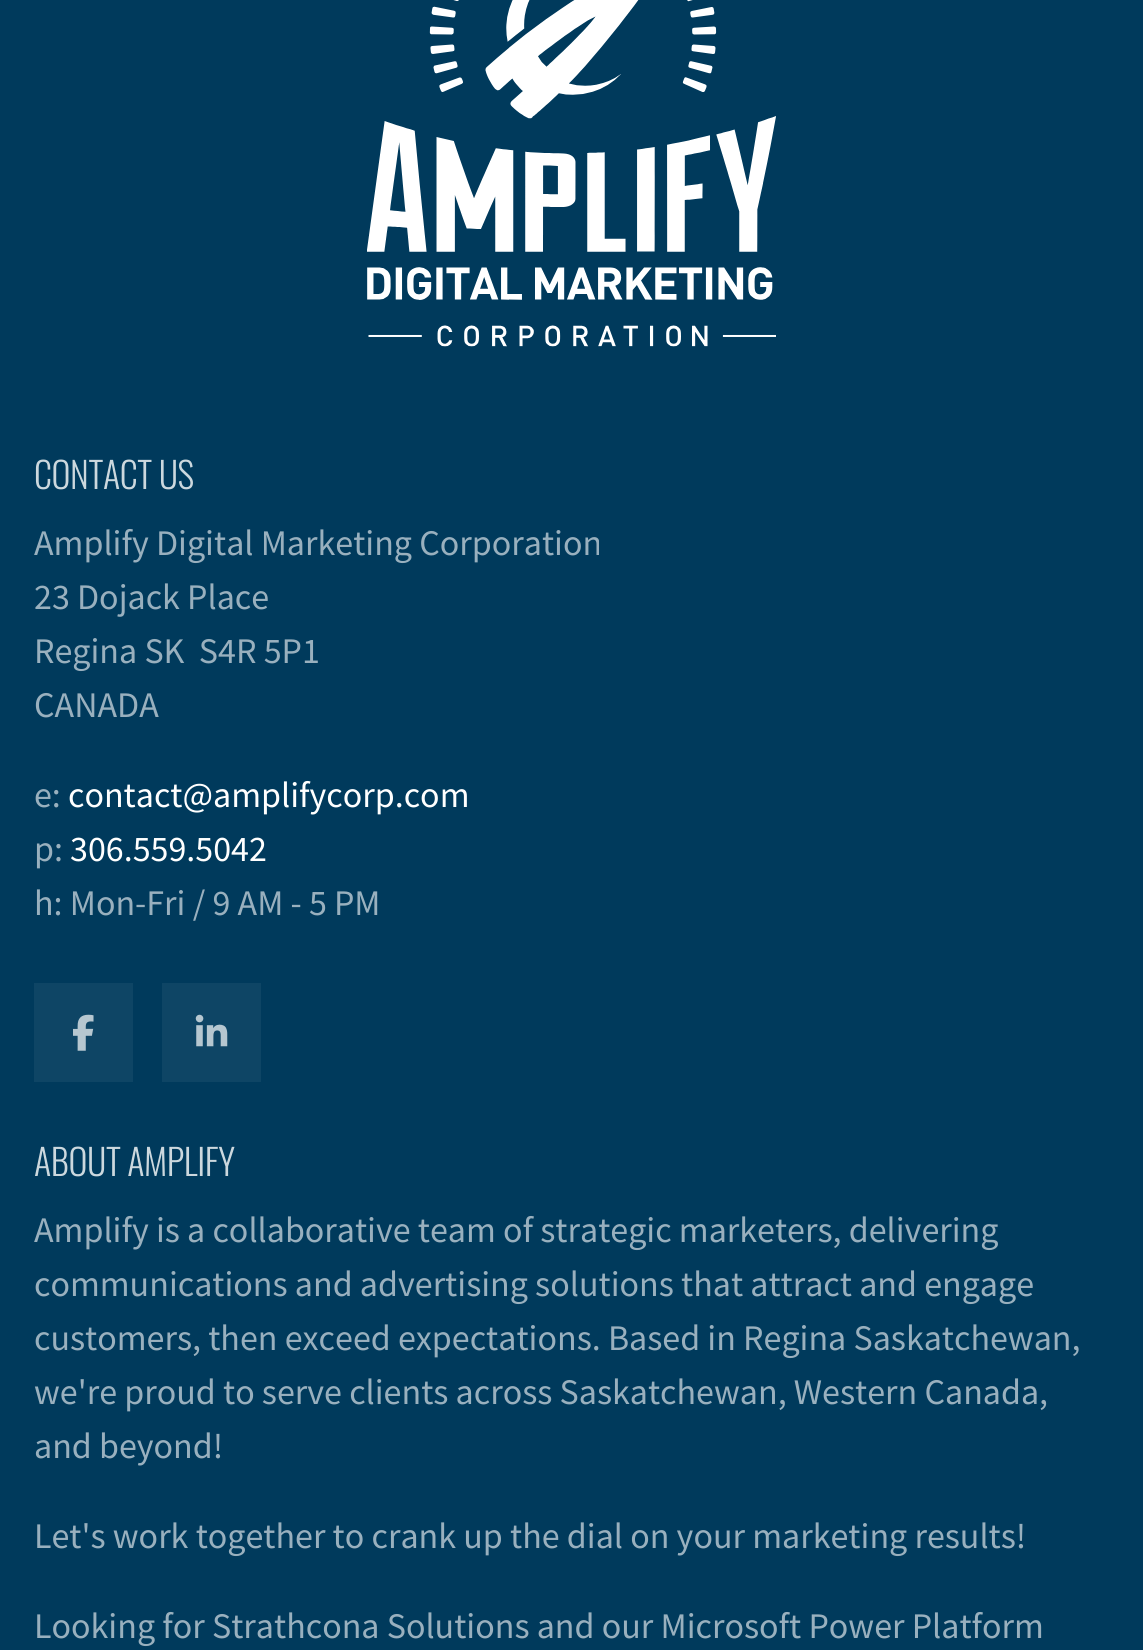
#include <cairo.h>
#include <math.h>
#include <stddef.h>


static void spaced_text(cairo_t *cr, double x, double y, const char *s, double letter, double word) {
    cairo_move_to(cr, x, y);
    while (*s) {
        char ch[5] = {0};
        int n = 0;
        do ch[n++] = *s++; while ((*s & 0xC0) == 0x80);
        cairo_show_text(cr, ch);
        cairo_rel_move_to(cr, letter + word * (*ch == ' '), 0);
    }
}

static void picture(cairo_t *cr, const char *path, double x, double y, double w, double h) {
    cairo_surface_t *image = cairo_image_surface_create_from_png(path);
    cairo_save(cr);
    cairo_set_source_surface(cr, image, x, y);
    cairo_rectangle(cr, x, y, w, h);
    cairo_fill(cr);
    cairo_restore(cr);
    cairo_surface_destroy(image);
}

int main(void) {
    cairo_surface_t *surface = cairo_image_surface_create(CAIRO_FORMAT_RGB24, 1143, 1650);
    cairo_t *cr = cairo_create(surface);
    cairo_font_options_t *options = cairo_font_options_create();
    cairo_font_options_set_hint_metrics(options, CAIRO_HINT_METRICS_OFF);
    cairo_font_options_set_hint_style(options, CAIRO_HINT_STYLE_NONE);
    cairo_set_font_options(cr, options);
    cairo_set_miter_limit(cr, 4);
    cairo_set_source_rgb(cr, 0, 0.227, 0.361);
    cairo_paint(cr);
    picture(cr, "img1.png", 367, 0, 409, 347);
    cairo_select_font_face(cr, "Oswald Light", CAIRO_FONT_SLANT_NORMAL, CAIRO_FONT_WEIGHT_NORMAL);
    cairo_set_font_size(cr, 36);
    cairo_set_source_rgb(cr, 0.8, 0.847, 0.871);
    spaced_text(cr, 34, 489, "CONTACT US", -0.4, 0);
    cairo_select_font_face(cr, "Source Sans Pro", CAIRO_FONT_SLANT_NORMAL, CAIRO_FONT_WEIGHT_NORMAL);
    cairo_set_source_rgb(cr, 0.6, 0.69, 0.745);
    cairo_move_to(cr, 34, 555);
    cairo_show_text(cr, "Amplify Digital Marketing Corporation");
    cairo_move_to(cr, 34, 609);
    cairo_show_text(cr, "23 Dojack Place");
    cairo_move_to(cr, 34, 663);
    cairo_show_text(cr, "Regina SK  S4R 5P1");
    cairo_move_to(cr, 34, 717);
    cairo_show_text(cr, "CANADA");
    cairo_move_to(cr, 34, 807);
    cairo_show_text(cr, "e:");
    cairo_set_source_rgb(cr, 1, 1, 1);
    cairo_move_to(cr, 68, 807);
    cairo_show_text(cr, "contact@amplifycorp.com");
    cairo_set_source_rgb(cr, 0.6, 0.69, 0.745);
    cairo_move_to(cr, 34, 861);
    cairo_show_text(cr, "p:");
    cairo_set_source_rgb(cr, 1, 1, 1);
    cairo_move_to(cr, 70, 861);
    cairo_show_text(cr, "306.559.5042");
    cairo_set_source_rgb(cr, 0.6, 0.69, 0.745);
    cairo_move_to(cr, 34, 915);
    cairo_show_text(cr, "h: Mon-Fri / 9 AM - 5 PM");
    cairo_set_source_rgb(cr, 0.055, 0.271, 0.396);
    cairo_rectangle(cr, 34, 983, 99, 99);
    cairo_fill(cr);
    picture(cr, "img2.png", 73, 1014, 21, 37);
    cairo_rectangle(cr, 162, 983, 99, 99);
    cairo_fill(cr);
    picture(cr, "img3.png", 195, 1014, 33, 33);
    cairo_select_font_face(cr, "Oswald Light", CAIRO_FONT_SLANT_NORMAL, CAIRO_FONT_WEIGHT_NORMAL);
    cairo_set_source_rgb(cr, 0.8, 0.847, 0.871);
    spaced_text(cr, 34, 1176, "ABOUT AMPLIFY", -0.4, 0);
    cairo_select_font_face(cr, "Source Sans Pro", CAIRO_FONT_SLANT_NORMAL, CAIRO_FONT_WEIGHT_NORMAL);
    cairo_set_source_rgb(cr, 0.6, 0.69, 0.745);
    cairo_move_to(cr, 34, 1242);
    cairo_show_text(cr, "Amplify is a collaborative team of strategic marketers, delivering");
    cairo_move_to(cr, 34, 1296);
    cairo_show_text(cr, "communications and advertising solutions that attract and engage");
    cairo_move_to(cr, 34, 1350);
    cairo_show_text(cr, "customers, then exceed expectations. Based in Regina Saskatchewan,");
    cairo_move_to(cr, 34, 1404);
    cairo_show_text(cr, "we're proud to serve clients across Saskatchewan, Western Canada,");
    cairo_move_to(cr, 34, 1458);
    cairo_show_text(cr, "and beyond!");
    cairo_move_to(cr, 34, 1548);
    cairo_show_text(cr, "Let's work together to crank up the dial on your marketing results!");
    cairo_move_to(cr, 34, 1638);
    cairo_show_text(cr, "Looking for Strathcona Solutions and our Microsoft Power Platform");
    cairo_surface_write_to_png(surface, "page.png");
    cairo_font_options_destroy(options);
    cairo_destroy(cr);
    cairo_surface_destroy(surface);
    return 0;
}
